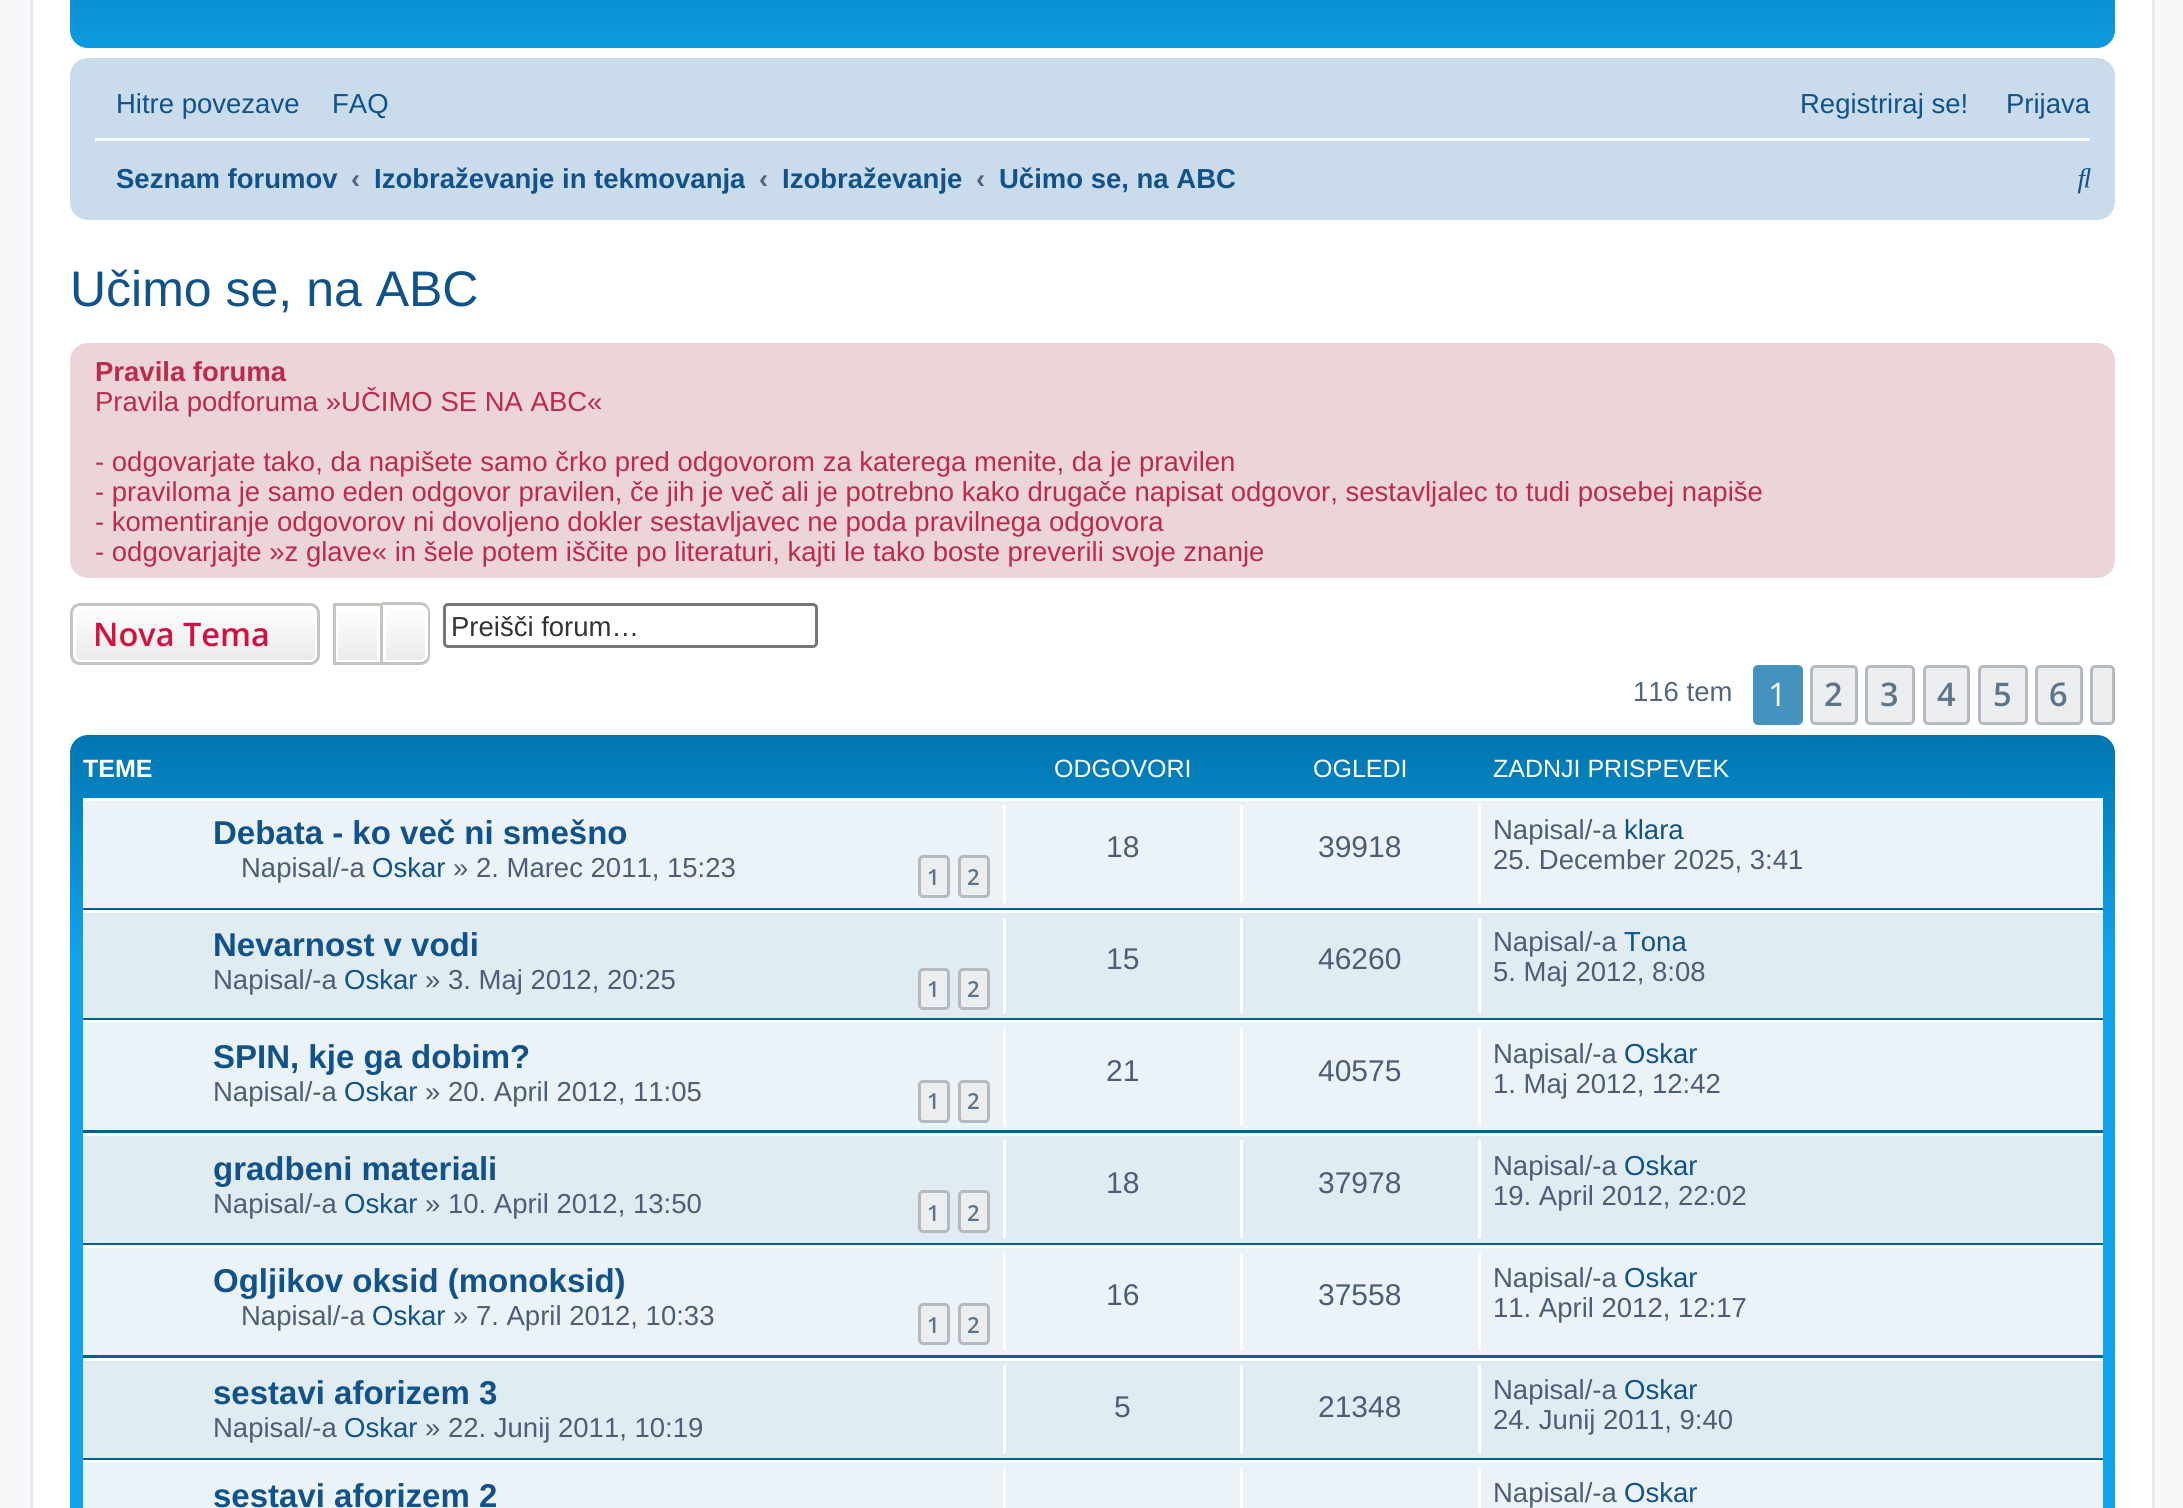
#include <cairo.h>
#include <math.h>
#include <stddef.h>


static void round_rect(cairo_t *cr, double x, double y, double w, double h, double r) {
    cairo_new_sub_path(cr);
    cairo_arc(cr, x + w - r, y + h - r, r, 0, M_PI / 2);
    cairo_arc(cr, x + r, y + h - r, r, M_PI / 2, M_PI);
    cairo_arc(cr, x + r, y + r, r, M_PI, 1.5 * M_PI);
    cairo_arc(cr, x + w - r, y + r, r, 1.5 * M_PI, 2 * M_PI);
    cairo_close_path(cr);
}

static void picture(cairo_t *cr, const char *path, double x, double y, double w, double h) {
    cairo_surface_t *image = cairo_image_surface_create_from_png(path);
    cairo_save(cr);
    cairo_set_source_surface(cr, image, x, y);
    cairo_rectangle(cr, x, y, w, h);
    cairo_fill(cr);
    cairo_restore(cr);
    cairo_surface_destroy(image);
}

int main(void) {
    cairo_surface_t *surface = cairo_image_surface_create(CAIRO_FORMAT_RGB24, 2183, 1508);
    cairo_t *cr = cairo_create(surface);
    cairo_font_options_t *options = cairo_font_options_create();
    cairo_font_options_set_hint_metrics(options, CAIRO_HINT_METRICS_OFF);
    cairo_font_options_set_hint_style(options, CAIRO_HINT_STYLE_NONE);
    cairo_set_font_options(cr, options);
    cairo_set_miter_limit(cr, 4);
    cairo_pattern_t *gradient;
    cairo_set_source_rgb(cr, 0.961, 0.969, 0.98);
    cairo_paint(cr);
    cairo_set_source_rgb(cr, 1, 1, 1);
    cairo_rectangle(cr, 31.5, -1.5, 2122, 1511);
    cairo_fill_preserve(cr);
    cairo_set_source_rgb(cr, 0.902, 0.914, 0.929);
    cairo_set_line_width(cr, 3);
    cairo_stroke(cr);
    gradient = cairo_pattern_create_linear(1093, -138, 1093, 92);
    cairo_pattern_add_color_stop_rgba(gradient, 0, 0.416, 0.808, 1, 1);
    cairo_pattern_add_color_stop_rgba(gradient, 0.02, 0, 0.463, 0.694, 1);
    cairo_pattern_add_color_stop_rgba(gradient, 1, 0.071, 0.639, 0.922, 1);
    cairo_set_source(cr, gradient);
    cairo_pattern_destroy(gradient);
    round_rect(cr, 70, -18, 2045, 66, 18);
    cairo_fill(cr);
    cairo_set_source_rgb(cr, 0.792, 0.863, 0.922);
    round_rect(cr, 70, 58, 2045, 162, 18);
    cairo_fill(cr);
    cairo_select_font_face(cr, "Liberation Sans", CAIRO_FONT_SLANT_NORMAL, CAIRO_FONT_WEIGHT_NORMAL);
    cairo_set_font_size(cr, 27.5);
    cairo_set_source_rgb(cr, 0.063, 0.322, 0.537);
    cairo_move_to(cr, 116, 113);
    cairo_show_text(cr, "Hitre povezave");
    cairo_move_to(cr, 332, 113);
    cairo_show_text(cr, "FAQ");
    cairo_move_to(cr, 1800, 113);
    cairo_show_text(cr, "Registriraj se!");
    cairo_move_to(cr, 2006, 113);
    cairo_show_text(cr, "Prijava");
    cairo_set_source_rgb(cr, 1, 1, 1);
    cairo_rectangle(cr, 95, 138, 1995, 3);
    cairo_fill(cr);
    cairo_select_font_face(cr, "Liberation Sans", CAIRO_FONT_SLANT_NORMAL, CAIRO_FONT_WEIGHT_BOLD);
    cairo_set_source_rgb(cr, 0.063, 0.322, 0.537);
    cairo_move_to(cr, 116, 188);
    cairo_show_text(cr, "Seznam forumov");
    cairo_set_source_rgb(cr, 0.325, 0.392, 0.51);
    cairo_move_to(cr, 351, 188);
    cairo_show_text(cr, "‹");
    cairo_save(cr);
    cairo_rectangle(cr, 375, 148, 370, 60);
    cairo_clip(cr);
    cairo_set_source_rgb(cr, 0.063, 0.322, 0.537);
    cairo_move_to(cr, 374, 188);
    cairo_show_text(cr, "Izobraževanje in tekmovanja");
    cairo_restore(cr);
    cairo_move_to(cr, 759, 188);
    cairo_show_text(cr, "‹");
    cairo_set_source_rgb(cr, 0.063, 0.322, 0.537);
    cairo_move_to(cr, 782, 188);
    cairo_show_text(cr, "Izobraževanje");
    cairo_set_source_rgb(cr, 0.325, 0.392, 0.51);
    cairo_move_to(cr, 976, 188);
    cairo_show_text(cr, "‹");
    cairo_set_source_rgb(cr, 0.063, 0.322, 0.537);
    cairo_move_to(cr, 999, 188);
    cairo_show_text(cr, "Učimo se, na ABC");
    picture(cr, "img1.png", 2077, 168, 14, 26);
    cairo_select_font_face(cr, "Liberation Sans", CAIRO_FONT_SLANT_NORMAL, CAIRO_FONT_WEIGHT_NORMAL);
    cairo_set_font_size(cr, 50);
    cairo_move_to(cr, 70, 306);
    cairo_show_text(cr, "Učimo se, na ABC");
    cairo_set_source_rgb(cr, 0.925, 0.835, 0.847);
    round_rect(cr, 70, 343, 2045, 235, 18);
    cairo_fill(cr);
    cairo_select_font_face(cr, "Liberation Sans", CAIRO_FONT_SLANT_NORMAL, CAIRO_FONT_WEIGHT_BOLD);
    cairo_set_font_size(cr, 27.5);
    cairo_set_source_rgb(cr, 0.737, 0.165, 0.302);
    cairo_move_to(cr, 95, 381);
    cairo_show_text(cr, "Pravila foruma");
    cairo_select_font_face(cr, "Liberation Sans", CAIRO_FONT_SLANT_NORMAL, CAIRO_FONT_WEIGHT_NORMAL);
    cairo_move_to(cr, 95, 411);
    cairo_show_text(cr, "Pravila podforuma »UČIMO SE NA ABC«");
    cairo_move_to(cr, 95, 471);
    cairo_show_text(cr, "- odgovarjate tako, da napišete samo črko pred odgovorom za katerega menite, da je pravilen");
    cairo_move_to(cr, 95, 501);
    cairo_show_text(cr, "- praviloma je samo eden odgovor pravilen, če jih je več ali je potrebno kako drugače napisat odgovor, sestavljalec to tudi posebej napiše");
    cairo_move_to(cr, 95, 531);
    cairo_show_text(cr, "- komentiranje odgovorov ni dovoljeno dokler sestavljavec ne poda pravilnega odgovora");
    cairo_move_to(cr, 95, 561);
    cairo_show_text(cr, "- odgovarjajte »z glave« in šele potem iščite po literaturi, kajti le tako boste preverili svoje znanje");
    cairo_save(cr);
    round_rect(cr, 70, 603, 250, 62, 10);
    cairo_clip(cr);
    gradient = cairo_pattern_create_linear(195, 605, 195, 663);
    cairo_pattern_add_color_stop_rgba(gradient, 0, 1, 1, 1, 1);
    cairo_pattern_add_color_stop_rgba(gradient, 1, 0.914, 0.914, 0.914, 1);
    cairo_set_source(cr, gradient);
    cairo_pattern_destroy(gradient);
    cairo_rectangle(cr, 70, 605, 250, 58);
    cairo_fill(cr);
    cairo_restore(cr);
    round_rect(cr, 74.5, 606.5, 242, 55, 6.5);
    cairo_set_source_rgb(cr, 1, 1, 1);
    cairo_stroke(cr);
    round_rect(cr, 71.5, 604.5, 247, 59, 8.5);
    cairo_set_source_rgb(cr, 0.78, 0.765, 0.749);
    cairo_stroke(cr);
    cairo_select_font_face(cr, "Open Sans SemiBold", CAIRO_FONT_SLANT_NORMAL, CAIRO_FONT_WEIGHT_NORMAL);
    cairo_set_font_size(cr, 32.5);
    cairo_set_source_rgb(cr, 0.827, 0.067, 0.255);
    cairo_move_to(cr, 93, 646);
    cairo_show_text(cr, "Nova Tema");
    gradient = cairo_pattern_create_linear(358, 605, 358, 663);
    cairo_pattern_add_color_stop_rgba(gradient, 0, 1, 1, 1, 1);
    cairo_pattern_add_color_stop_rgba(gradient, 1, 0.914, 0.914, 0.914, 1);
    cairo_set_source(cr, gradient);
    cairo_pattern_destroy(gradient);
    cairo_rectangle(cr, 338, 612, 39, 48);
    cairo_fill(cr);
    cairo_rectangle(cr, 334.5, 604.5, 47, 59);
    cairo_set_source_rgb(cr, 0.78, 0.765, 0.749);
    cairo_stroke(cr);
    gradient = cairo_pattern_create_linear(405, 605, 405, 663);
    cairo_pattern_add_color_stop_rgba(gradient, 0, 1, 1, 1, 1);
    cairo_pattern_add_color_stop_rgba(gradient, 1, 0.914, 0.914, 0.914, 1);
    cairo_set_source(cr, gradient);
    cairo_pattern_destroy(gradient);
    cairo_new_path(cr);
    cairo_move_to(cr, 384.5, 606.5);
    cairo_line_to(cr, 420, 606.5);
    cairo_curve_to(cr, 423.5, 606.5, 426.5, 609.5, 426.5, 613);
    cairo_line_to(cr, 426.5, 655);
    cairo_curve_to(cr, 426.5, 658.5, 423.5, 661.5, 420, 661.5);
    cairo_line_to(cr, 384.5, 661.5);
    cairo_close_path(cr);
    cairo_fill_preserve(cr);
    cairo_set_source_rgb(cr, 1, 1, 1);
    cairo_stroke(cr);
    cairo_set_source_rgb(cr, 0.78, 0.765, 0.749);
    cairo_set_fill_rule(cr, CAIRO_FILL_RULE_EVEN_ODD);
    cairo_new_path(cr);
    cairo_move_to(cr, 382, 602);
    cairo_line_to(cr, 420, 602);
    cairo_curve_to(cr, 426, 602, 430, 607, 430, 612);
    cairo_line_to(cr, 430, 655);
    cairo_curve_to(cr, 430, 661, 426, 665, 420, 665);
    cairo_line_to(cr, 382, 665);
    cairo_close_path(cr);
    cairo_move_to(cr, 382, 605);
    cairo_line_to(cr, 420, 605);
    cairo_curve_to(cr, 424, 605, 428, 608, 428, 612);
    cairo_line_to(cr, 428, 655);
    cairo_curve_to(cr, 428, 659, 424, 662, 420, 662);
    cairo_line_to(cr, 382, 662);
    cairo_close_path(cr);
    cairo_fill(cr);
    round_rect(cr, 444.5, 604.5, 372, 42, 3.5);
    cairo_set_source_rgb(cr, 0.463, 0.463, 0.463);
    cairo_stroke(cr);
    cairo_select_font_face(cr, "Liberation Sans", CAIRO_FONT_SLANT_NORMAL, CAIRO_FONT_WEIGHT_NORMAL);
    cairo_set_font_size(cr, 27.5);
    cairo_set_source_rgb(cr, 0.2, 0.2, 0.2);
    cairo_move_to(cr, 451, 636);
    cairo_show_text(cr, "Preišči forum…");
    cairo_set_source_rgb(cr, 0.325, 0.392, 0.51);
    cairo_move_to(cr, 1633, 701);
    cairo_show_text(cr, "116 tem");
    cairo_set_source_rgb(cr, 0.275, 0.573, 0.749);
    round_rect(cr, 1754.5, 666.5, 47, 57, 3.5);
    cairo_fill_preserve(cr);
    cairo_stroke(cr);
    cairo_select_font_face(cr, "Open Sans", CAIRO_FONT_SLANT_NORMAL, CAIRO_FONT_WEIGHT_NORMAL);
    cairo_set_font_size(cr, 32.5);
    cairo_set_source_rgb(cr, 1, 1, 1);
    cairo_move_to(cr, 1768, 706);
    cairo_show_text(cr, "1");
    cairo_set_source_rgb(cr, 0.925, 0.929, 0.933);
    round_rect(cr, 1811.5, 666.5, 45, 57, 3.5);
    cairo_fill_preserve(cr);
    cairo_set_source_rgb(cr, 0.706, 0.729, 0.753);
    cairo_stroke(cr);
    cairo_select_font_face(cr, "Open Sans SemiBold", CAIRO_FONT_SLANT_NORMAL, CAIRO_FONT_WEIGHT_NORMAL);
    cairo_set_source_rgb(cr, 0.361, 0.459, 0.549);
    cairo_move_to(cr, 1824, 706);
    cairo_show_text(cr, "2");
    cairo_set_source_rgb(cr, 0.925, 0.929, 0.933);
    round_rect(cr, 1866.5, 666.5, 47, 57, 3.5);
    cairo_fill_preserve(cr);
    cairo_set_source_rgb(cr, 0.706, 0.729, 0.753);
    cairo_stroke(cr);
    cairo_set_source_rgb(cr, 0.361, 0.459, 0.549);
    cairo_move_to(cr, 1880, 706);
    cairo_show_text(cr, "3");
    cairo_set_source_rgb(cr, 0.925, 0.929, 0.933);
    round_rect(cr, 1924.5, 666.5, 44, 57, 3.5);
    cairo_fill_preserve(cr);
    cairo_set_source_rgb(cr, 0.706, 0.729, 0.753);
    cairo_stroke(cr);
    cairo_set_source_rgb(cr, 0.361, 0.459, 0.549);
    cairo_move_to(cr, 1937, 706);
    cairo_show_text(cr, "4");
    cairo_set_source_rgb(cr, 0.925, 0.929, 0.933);
    round_rect(cr, 1979.5, 666.5, 47, 57, 3.5);
    cairo_fill_preserve(cr);
    cairo_set_source_rgb(cr, 0.706, 0.729, 0.753);
    cairo_stroke(cr);
    cairo_set_source_rgb(cr, 0.361, 0.459, 0.549);
    cairo_move_to(cr, 1993, 706);
    cairo_show_text(cr, "5");
    cairo_set_source_rgb(cr, 0.925, 0.929, 0.933);
    round_rect(cr, 2036.5, 666.5, 45, 57, 3.5);
    cairo_fill_preserve(cr);
    cairo_set_source_rgb(cr, 0.706, 0.729, 0.753);
    cairo_stroke(cr);
    cairo_set_source_rgb(cr, 0.361, 0.459, 0.549);
    cairo_move_to(cr, 2049, 706);
    cairo_show_text(cr, "6");
    cairo_set_source_rgb(cr, 0.925, 0.929, 0.933);
    round_rect(cr, 2091.5, 666.5, 22, 57, 3.5);
    cairo_fill_preserve(cr);
    cairo_set_source_rgb(cr, 0.706, 0.729, 0.753);
    cairo_stroke(cr);
    gradient = cairo_pattern_create_linear(1092, 735, 1093, 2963);
    cairo_pattern_add_color_stop_rgba(gradient, 0, 0.416, 0.808, 1, 1);
    cairo_pattern_add_color_stop_rgba(gradient, 0, 0, 0.463, 0.694, 1);
    cairo_pattern_add_color_stop_rgba(gradient, 0.1, 0.071, 0.639, 0.922, 1);
    cairo_pattern_add_color_stop_rgba(gradient, 1, 0.071, 0.639, 0.922, 1);
    cairo_set_source(cr, gradient);
    cairo_pattern_destroy(gradient);
    round_rect(cr, 70, 735, 2045, 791, 18);
    cairo_fill(cr);
    cairo_save(cr);
    cairo_set_fill_rule(cr, CAIRO_FILL_RULE_WINDING);
    cairo_rectangle(cr, 83, 748, 2020, 50);
    cairo_clip(cr);
    cairo_select_font_face(cr, "Liberation Sans", CAIRO_FONT_SLANT_NORMAL, CAIRO_FONT_WEIGHT_BOLD);
    cairo_set_font_size(cr, 25);
    cairo_set_source_rgb(cr, 1, 1, 1);
    cairo_move_to(cr, 83, 777);
    cairo_show_text(cr, "TEME");
    cairo_restore(cr);
    cairo_select_font_face(cr, "Liberation Sans", CAIRO_FONT_SLANT_NORMAL, CAIRO_FONT_WEIGHT_NORMAL);
    cairo_set_font_size(cr, 25);
    cairo_set_source_rgb(cr, 1, 1, 1);
    cairo_move_to(cr, 1054, 777);
    cairo_show_text(cr, "ODGOVORI");
    cairo_move_to(cr, 1313, 777);
    cairo_show_text(cr, "OGLEDI");
    cairo_move_to(cr, 1493, 777);
    cairo_show_text(cr, "ZADNJI PRISPEVEK");
    cairo_set_source_rgb(cr, 0.925, 0.953, 0.969);
    cairo_rectangle(cr, 83, 801, 2020, 107);
    cairo_fill(cr);
    cairo_set_source_rgb(cr, 1, 1, 1);
    cairo_rectangle(cr, 83, 798, 2020, 3);
    cairo_fill(cr);
    cairo_set_source_rgb(cr, 0, 0.376, 0.561);
    cairo_rectangle(cr, 83, 908, 2020, 2);
    cairo_fill(cr);
    cairo_select_font_face(cr, "Liberation Sans", CAIRO_FONT_SLANT_NORMAL, CAIRO_FONT_WEIGHT_BOLD);
    cairo_set_font_size(cr, 33);
    cairo_set_source_rgb(cr, 0.063, 0.322, 0.537);
    cairo_move_to(cr, 213, 844);
    cairo_show_text(cr, "Debata - ko več ni smešno");
    cairo_select_font_face(cr, "Liberation Sans", CAIRO_FONT_SLANT_NORMAL, CAIRO_FONT_WEIGHT_NORMAL);
    cairo_set_font_size(cr, 27.5);
    cairo_set_source_rgb(cr, 0.298, 0.365, 0.467);
    cairo_move_to(cr, 241, 877);
    cairo_show_text(cr, "Napisal/-a");
    cairo_set_source_rgb(cr, 0.063, 0.322, 0.537);
    cairo_move_to(cr, 372, 877);
    cairo_show_text(cr, "Oskar");
    cairo_set_source_rgb(cr, 0.298, 0.365, 0.467);
    cairo_move_to(cr, 453, 877);
    cairo_show_text(cr, "» 2. Marec 2011, 15:23");
    cairo_set_source_rgb(cr, 0.925, 0.929, 0.933);
    round_rect(cr, 919.5, 856.5, 29, 40, 3.5);
    cairo_fill_preserve(cr);
    cairo_set_source_rgb(cr, 0.706, 0.729, 0.753);
    cairo_stroke(cr);
    cairo_select_font_face(cr, "Open Sans SemiBold", CAIRO_FONT_SLANT_NORMAL, CAIRO_FONT_WEIGHT_NORMAL);
    cairo_set_font_size(cr, 22);
    cairo_set_source_rgb(cr, 0.361, 0.459, 0.549);
    cairo_move_to(cr, 927, 885);
    cairo_show_text(cr, "1");
    cairo_set_source_rgb(cr, 0.925, 0.929, 0.933);
    round_rect(cr, 959.5, 856.5, 29, 40, 3.5);
    cairo_fill_preserve(cr);
    cairo_set_source_rgb(cr, 0.706, 0.729, 0.753);
    cairo_stroke(cr);
    cairo_set_source_rgb(cr, 0.361, 0.459, 0.549);
    cairo_move_to(cr, 967, 885);
    cairo_show_text(cr, "2");
    cairo_set_source_rgb(cr, 1, 1, 1);
    cairo_rectangle(cr, 1003, 805, 3, 98);
    cairo_fill(cr);
    cairo_select_font_face(cr, "Liberation Sans", CAIRO_FONT_SLANT_NORMAL, CAIRO_FONT_WEIGHT_NORMAL);
    cairo_set_font_size(cr, 30);
    cairo_set_source_rgb(cr, 0.298, 0.365, 0.467);
    cairo_move_to(cr, 1106, 857);
    cairo_show_text(cr, "18");
    cairo_set_source_rgb(cr, 1, 1, 1);
    cairo_rectangle(cr, 1240, 805, 3, 98);
    cairo_fill(cr);
    cairo_set_source_rgb(cr, 0.298, 0.365, 0.467);
    cairo_move_to(cr, 1318, 857);
    cairo_show_text(cr, "39918");
    cairo_set_source_rgb(cr, 1, 1, 1);
    cairo_rectangle(cr, 1478, 805, 3, 98);
    cairo_fill(cr);
    cairo_set_font_size(cr, 27.5);
    cairo_set_source_rgb(cr, 0.298, 0.365, 0.467);
    cairo_move_to(cr, 1493, 839);
    cairo_show_text(cr, "Napisal/-a");
    cairo_set_source_rgb(cr, 0.063, 0.322, 0.537);
    cairo_move_to(cr, 1624, 839);
    cairo_show_text(cr, "klara");
    cairo_set_source_rgb(cr, 0.298, 0.365, 0.467);
    cairo_move_to(cr, 1493, 869);
    cairo_show_text(cr, "25. December 2025, 3:41");
    cairo_set_source_rgb(cr, 0.882, 0.922, 0.949);
    cairo_rectangle(cr, 83, 913, 2020, 105);
    cairo_fill(cr);
    cairo_set_source_rgb(cr, 1, 1, 1);
    cairo_rectangle(cr, 83, 910, 2020, 3);
    cairo_fill(cr);
    cairo_set_source_rgb(cr, 0, 0.376, 0.561);
    cairo_rectangle(cr, 83, 1018, 2020, 2);
    cairo_fill(cr);
    cairo_select_font_face(cr, "Liberation Sans", CAIRO_FONT_SLANT_NORMAL, CAIRO_FONT_WEIGHT_BOLD);
    cairo_set_font_size(cr, 33);
    cairo_set_source_rgb(cr, 0.063, 0.322, 0.537);
    cairo_move_to(cr, 213, 956);
    cairo_show_text(cr, "Nevarnost v vodi");
    cairo_select_font_face(cr, "Liberation Sans", CAIRO_FONT_SLANT_NORMAL, CAIRO_FONT_WEIGHT_NORMAL);
    cairo_set_font_size(cr, 27.5);
    cairo_set_source_rgb(cr, 0.298, 0.365, 0.467);
    cairo_move_to(cr, 213, 989);
    cairo_show_text(cr, "Napisal/-a");
    cairo_set_source_rgb(cr, 0.063, 0.322, 0.537);
    cairo_move_to(cr, 344, 989);
    cairo_show_text(cr, "Oskar");
    cairo_set_source_rgb(cr, 0.298, 0.365, 0.467);
    cairo_move_to(cr, 425, 989);
    cairo_show_text(cr, "» 3. Maj 2012, 20:25");
    cairo_set_source_rgb(cr, 0.925, 0.929, 0.933);
    round_rect(cr, 919.5, 969.5, 29, 39, 3.5);
    cairo_fill_preserve(cr);
    cairo_set_source_rgb(cr, 0.706, 0.729, 0.753);
    cairo_stroke(cr);
    cairo_select_font_face(cr, "Open Sans SemiBold", CAIRO_FONT_SLANT_NORMAL, CAIRO_FONT_WEIGHT_NORMAL);
    cairo_set_font_size(cr, 22);
    cairo_set_source_rgb(cr, 0.361, 0.459, 0.549);
    cairo_move_to(cr, 927, 997);
    cairo_show_text(cr, "1");
    cairo_set_source_rgb(cr, 0.925, 0.929, 0.933);
    round_rect(cr, 959.5, 969.5, 29, 39, 3.5);
    cairo_fill_preserve(cr);
    cairo_set_source_rgb(cr, 0.706, 0.729, 0.753);
    cairo_stroke(cr);
    cairo_set_source_rgb(cr, 0.361, 0.459, 0.549);
    cairo_move_to(cr, 967, 997);
    cairo_show_text(cr, "2");
    cairo_set_source_rgb(cr, 1, 1, 1);
    cairo_rectangle(cr, 1003, 918, 3, 95);
    cairo_fill(cr);
    cairo_select_font_face(cr, "Liberation Sans", CAIRO_FONT_SLANT_NORMAL, CAIRO_FONT_WEIGHT_NORMAL);
    cairo_set_font_size(cr, 30);
    cairo_set_source_rgb(cr, 0.298, 0.365, 0.467);
    cairo_move_to(cr, 1106, 969);
    cairo_show_text(cr, "15");
    cairo_set_source_rgb(cr, 1, 1, 1);
    cairo_rectangle(cr, 1240, 918, 3, 95);
    cairo_fill(cr);
    cairo_set_source_rgb(cr, 0.298, 0.365, 0.467);
    cairo_move_to(cr, 1318, 969);
    cairo_show_text(cr, "46260");
    cairo_set_source_rgb(cr, 1, 1, 1);
    cairo_rectangle(cr, 1478, 918, 3, 95);
    cairo_fill(cr);
    cairo_set_font_size(cr, 27.5);
    cairo_set_source_rgb(cr, 0.298, 0.365, 0.467);
    cairo_move_to(cr, 1493, 951);
    cairo_show_text(cr, "Napisal/-a");
    cairo_set_source_rgb(cr, 0.063, 0.322, 0.537);
    cairo_move_to(cr, 1624, 951);
    cairo_show_text(cr, "Tona");
    cairo_set_source_rgb(cr, 0.298, 0.365, 0.467);
    cairo_move_to(cr, 1493, 981);
    cairo_show_text(cr, "5. Maj 2012, 8:08");
    cairo_set_source_rgb(cr, 0.925, 0.953, 0.969);
    cairo_rectangle(cr, 83, 1023, 2020, 107);
    cairo_fill(cr);
    cairo_set_source_rgb(cr, 1, 1, 1);
    cairo_rectangle(cr, 83, 1020, 2020, 3);
    cairo_fill(cr);
    cairo_set_source_rgb(cr, 0, 0.376, 0.561);
    cairo_rectangle(cr, 83, 1130, 2020, 3);
    cairo_fill(cr);
    cairo_select_font_face(cr, "Liberation Sans", CAIRO_FONT_SLANT_NORMAL, CAIRO_FONT_WEIGHT_BOLD);
    cairo_set_font_size(cr, 33);
    cairo_set_source_rgb(cr, 0.063, 0.322, 0.537);
    cairo_move_to(cr, 213, 1068);
    cairo_show_text(cr, "SPIN, kje ga dobim?");
    cairo_select_font_face(cr, "Liberation Sans", CAIRO_FONT_SLANT_NORMAL, CAIRO_FONT_WEIGHT_NORMAL);
    cairo_set_font_size(cr, 27.5);
    cairo_set_source_rgb(cr, 0.298, 0.365, 0.467);
    cairo_move_to(cr, 213, 1101);
    cairo_show_text(cr, "Napisal/-a");
    cairo_set_source_rgb(cr, 0.063, 0.322, 0.537);
    cairo_move_to(cr, 344, 1101);
    cairo_show_text(cr, "Oskar");
    cairo_set_source_rgb(cr, 0.298, 0.365, 0.467);
    cairo_move_to(cr, 425, 1101);
    cairo_show_text(cr, "» 20. April 2012, 11:05");
    cairo_set_source_rgb(cr, 0.925, 0.929, 0.933);
    round_rect(cr, 919.5, 1081.5, 29, 40, 3.5);
    cairo_fill_preserve(cr);
    cairo_set_source_rgb(cr, 0.706, 0.729, 0.753);
    cairo_stroke(cr);
    cairo_select_font_face(cr, "Open Sans SemiBold", CAIRO_FONT_SLANT_NORMAL, CAIRO_FONT_WEIGHT_NORMAL);
    cairo_set_font_size(cr, 22);
    cairo_set_source_rgb(cr, 0.361, 0.459, 0.549);
    cairo_move_to(cr, 927, 1109);
    cairo_show_text(cr, "1");
    cairo_set_source_rgb(cr, 0.925, 0.929, 0.933);
    round_rect(cr, 959.5, 1081.5, 29, 40, 3.5);
    cairo_fill_preserve(cr);
    cairo_set_source_rgb(cr, 0.706, 0.729, 0.753);
    cairo_stroke(cr);
    cairo_set_source_rgb(cr, 0.361, 0.459, 0.549);
    cairo_move_to(cr, 967, 1109);
    cairo_show_text(cr, "2");
    cairo_set_source_rgb(cr, 1, 1, 1);
    cairo_rectangle(cr, 1003, 1028, 3, 97);
    cairo_fill(cr);
    cairo_select_font_face(cr, "Liberation Sans", CAIRO_FONT_SLANT_NORMAL, CAIRO_FONT_WEIGHT_NORMAL);
    cairo_set_font_size(cr, 30);
    cairo_set_source_rgb(cr, 0.298, 0.365, 0.467);
    cairo_move_to(cr, 1106, 1081);
    cairo_show_text(cr, "21");
    cairo_set_source_rgb(cr, 1, 1, 1);
    cairo_rectangle(cr, 1240, 1028, 3, 97);
    cairo_fill(cr);
    cairo_set_source_rgb(cr, 0.298, 0.365, 0.467);
    cairo_move_to(cr, 1318, 1081);
    cairo_show_text(cr, "40575");
    cairo_set_source_rgb(cr, 1, 1, 1);
    cairo_rectangle(cr, 1478, 1028, 3, 97);
    cairo_fill(cr);
    cairo_set_font_size(cr, 27.5);
    cairo_set_source_rgb(cr, 0.298, 0.365, 0.467);
    cairo_move_to(cr, 1493, 1063);
    cairo_show_text(cr, "Napisal/-a");
    cairo_set_source_rgb(cr, 0.063, 0.322, 0.537);
    cairo_move_to(cr, 1624, 1063);
    cairo_show_text(cr, "Oskar");
    cairo_set_source_rgb(cr, 0.298, 0.365, 0.467);
    cairo_move_to(cr, 1493, 1093);
    cairo_show_text(cr, "1. Maj 2012, 12:42");
    cairo_set_source_rgb(cr, 0.882, 0.922, 0.949);
    cairo_rectangle(cr, 83, 1136, 2020, 107);
    cairo_fill(cr);
    cairo_set_source_rgb(cr, 1, 1, 1);
    cairo_rectangle(cr, 83, 1133, 2020, 3);
    cairo_fill(cr);
    cairo_set_source_rgb(cr, 0, 0.376, 0.561);
    cairo_rectangle(cr, 83, 1243, 2020, 2);
    cairo_fill(cr);
    cairo_select_font_face(cr, "Liberation Sans", CAIRO_FONT_SLANT_NORMAL, CAIRO_FONT_WEIGHT_BOLD);
    cairo_set_font_size(cr, 33);
    cairo_set_source_rgb(cr, 0.063, 0.322, 0.537);
    cairo_move_to(cr, 213, 1180);
    cairo_show_text(cr, "gradbeni materiali");
    cairo_select_font_face(cr, "Liberation Sans", CAIRO_FONT_SLANT_NORMAL, CAIRO_FONT_WEIGHT_NORMAL);
    cairo_set_font_size(cr, 27.5);
    cairo_set_source_rgb(cr, 0.298, 0.365, 0.467);
    cairo_move_to(cr, 213, 1213);
    cairo_show_text(cr, "Napisal/-a");
    cairo_set_source_rgb(cr, 0.063, 0.322, 0.537);
    cairo_move_to(cr, 344, 1213);
    cairo_show_text(cr, "Oskar");
    cairo_set_source_rgb(cr, 0.298, 0.365, 0.467);
    cairo_move_to(cr, 425, 1213);
    cairo_show_text(cr, "» 10. April 2012, 13:50");
    cairo_set_source_rgb(cr, 0.925, 0.929, 0.933);
    round_rect(cr, 919.5, 1191.5, 29, 40, 3.5);
    cairo_fill_preserve(cr);
    cairo_set_source_rgb(cr, 0.706, 0.729, 0.753);
    cairo_stroke(cr);
    cairo_select_font_face(cr, "Open Sans SemiBold", CAIRO_FONT_SLANT_NORMAL, CAIRO_FONT_WEIGHT_NORMAL);
    cairo_set_font_size(cr, 22);
    cairo_set_source_rgb(cr, 0.361, 0.459, 0.549);
    cairo_move_to(cr, 927, 1221);
    cairo_show_text(cr, "1");
    cairo_set_source_rgb(cr, 0.925, 0.929, 0.933);
    round_rect(cr, 959.5, 1191.5, 29, 40, 3.5);
    cairo_fill_preserve(cr);
    cairo_set_source_rgb(cr, 0.706, 0.729, 0.753);
    cairo_stroke(cr);
    cairo_set_source_rgb(cr, 0.361, 0.459, 0.549);
    cairo_move_to(cr, 967, 1221);
    cairo_show_text(cr, "2");
    cairo_set_source_rgb(cr, 1, 1, 1);
    cairo_rectangle(cr, 1003, 1140, 3, 98);
    cairo_fill(cr);
    cairo_select_font_face(cr, "Liberation Sans", CAIRO_FONT_SLANT_NORMAL, CAIRO_FONT_WEIGHT_NORMAL);
    cairo_set_font_size(cr, 30);
    cairo_set_source_rgb(cr, 0.298, 0.365, 0.467);
    cairo_move_to(cr, 1106, 1193);
    cairo_show_text(cr, "18");
    cairo_set_source_rgb(cr, 1, 1, 1);
    cairo_rectangle(cr, 1240, 1140, 3, 98);
    cairo_fill(cr);
    cairo_set_source_rgb(cr, 0.298, 0.365, 0.467);
    cairo_move_to(cr, 1318, 1193);
    cairo_show_text(cr, "37978");
    cairo_set_source_rgb(cr, 1, 1, 1);
    cairo_rectangle(cr, 1478, 1140, 3, 98);
    cairo_fill(cr);
    cairo_set_font_size(cr, 27.5);
    cairo_set_source_rgb(cr, 0.298, 0.365, 0.467);
    cairo_move_to(cr, 1493, 1175);
    cairo_show_text(cr, "Napisal/-a");
    cairo_set_source_rgb(cr, 0.063, 0.322, 0.537);
    cairo_move_to(cr, 1624, 1175);
    cairo_show_text(cr, "Oskar");
    cairo_set_source_rgb(cr, 0.298, 0.365, 0.467);
    cairo_move_to(cr, 1493, 1205);
    cairo_show_text(cr, "19. April 2012, 22:02");
    cairo_set_source_rgb(cr, 0.925, 0.953, 0.969);
    cairo_rectangle(cr, 83, 1248, 2020, 107);
    cairo_fill(cr);
    cairo_set_source_rgb(cr, 1, 1, 1);
    cairo_rectangle(cr, 83, 1245, 2020, 3);
    cairo_fill(cr);
    cairo_set_source_rgb(cr, 0, 0.376, 0.561);
    cairo_rectangle(cr, 83, 1355, 2020, 3);
    cairo_fill(cr);
    cairo_select_font_face(cr, "Liberation Sans", CAIRO_FONT_SLANT_NORMAL, CAIRO_FONT_WEIGHT_BOLD);
    cairo_set_font_size(cr, 33);
    cairo_set_source_rgb(cr, 0.063, 0.322, 0.537);
    cairo_move_to(cr, 213, 1292);
    cairo_show_text(cr, "Ogljikov oksid (monoksid)");
    cairo_select_font_face(cr, "Liberation Sans", CAIRO_FONT_SLANT_NORMAL, CAIRO_FONT_WEIGHT_NORMAL);
    cairo_set_font_size(cr, 27.5);
    cairo_set_source_rgb(cr, 0.298, 0.365, 0.467);
    cairo_move_to(cr, 241, 1325);
    cairo_show_text(cr, "Napisal/-a");
    cairo_set_source_rgb(cr, 0.063, 0.322, 0.537);
    cairo_move_to(cr, 372, 1325);
    cairo_show_text(cr, "Oskar");
    cairo_set_source_rgb(cr, 0.298, 0.365, 0.467);
    cairo_move_to(cr, 453, 1325);
    cairo_show_text(cr, "» 7. April 2012, 10:33");
    cairo_set_source_rgb(cr, 0.925, 0.929, 0.933);
    round_rect(cr, 919.5, 1304.5, 29, 39, 3.5);
    cairo_fill_preserve(cr);
    cairo_set_source_rgb(cr, 0.706, 0.729, 0.753);
    cairo_stroke(cr);
    cairo_select_font_face(cr, "Open Sans SemiBold", CAIRO_FONT_SLANT_NORMAL, CAIRO_FONT_WEIGHT_NORMAL);
    cairo_set_font_size(cr, 22);
    cairo_set_source_rgb(cr, 0.361, 0.459, 0.549);
    cairo_move_to(cr, 927, 1333);
    cairo_show_text(cr, "1");
    cairo_set_source_rgb(cr, 0.925, 0.929, 0.933);
    round_rect(cr, 959.5, 1304.5, 29, 39, 3.5);
    cairo_fill_preserve(cr);
    cairo_set_source_rgb(cr, 0.706, 0.729, 0.753);
    cairo_stroke(cr);
    cairo_set_source_rgb(cr, 0.361, 0.459, 0.549);
    cairo_move_to(cr, 967, 1333);
    cairo_show_text(cr, "2");
    cairo_set_source_rgb(cr, 1, 1, 1);
    cairo_rectangle(cr, 1003, 1253, 3, 97);
    cairo_fill(cr);
    cairo_select_font_face(cr, "Liberation Sans", CAIRO_FONT_SLANT_NORMAL, CAIRO_FONT_WEIGHT_NORMAL);
    cairo_set_font_size(cr, 30);
    cairo_set_source_rgb(cr, 0.298, 0.365, 0.467);
    cairo_move_to(cr, 1106, 1305);
    cairo_show_text(cr, "16");
    cairo_set_source_rgb(cr, 1, 1, 1);
    cairo_rectangle(cr, 1240, 1253, 3, 97);
    cairo_fill(cr);
    cairo_set_source_rgb(cr, 0.298, 0.365, 0.467);
    cairo_move_to(cr, 1318, 1305);
    cairo_show_text(cr, "37558");
    cairo_set_source_rgb(cr, 1, 1, 1);
    cairo_rectangle(cr, 1478, 1253, 3, 97);
    cairo_fill(cr);
    cairo_set_font_size(cr, 27.5);
    cairo_set_source_rgb(cr, 0.298, 0.365, 0.467);
    cairo_move_to(cr, 1493, 1287);
    cairo_show_text(cr, "Napisal/-a");
    cairo_set_source_rgb(cr, 0.063, 0.322, 0.537);
    cairo_move_to(cr, 1624, 1287);
    cairo_show_text(cr, "Oskar");
    cairo_set_source_rgb(cr, 0.298, 0.365, 0.467);
    cairo_move_to(cr, 1493, 1317);
    cairo_show_text(cr, "11. April 2012, 12:17");
    cairo_set_source_rgb(cr, 0.882, 0.922, 0.949);
    cairo_rectangle(cr, 83, 1361, 2020, 97);
    cairo_fill(cr);
    cairo_set_source_rgb(cr, 1, 1, 1);
    cairo_rectangle(cr, 83, 1358, 2020, 3);
    cairo_fill(cr);
    cairo_set_source_rgb(cr, 0, 0.376, 0.561);
    cairo_rectangle(cr, 83, 1458, 2020, 2);
    cairo_fill(cr);
    cairo_select_font_face(cr, "Liberation Sans", CAIRO_FONT_SLANT_NORMAL, CAIRO_FONT_WEIGHT_BOLD);
    cairo_set_font_size(cr, 33);
    cairo_set_source_rgb(cr, 0.063, 0.322, 0.537);
    cairo_move_to(cr, 213, 1404);
    cairo_show_text(cr, "sestavi aforizem 3");
    cairo_select_font_face(cr, "Liberation Sans", CAIRO_FONT_SLANT_NORMAL, CAIRO_FONT_WEIGHT_NORMAL);
    cairo_set_font_size(cr, 27.5);
    cairo_set_source_rgb(cr, 0.298, 0.365, 0.467);
    cairo_move_to(cr, 213, 1437);
    cairo_show_text(cr, "Napisal/-a");
    cairo_set_source_rgb(cr, 0.063, 0.322, 0.537);
    cairo_move_to(cr, 344, 1437);
    cairo_show_text(cr, "Oskar");
    cairo_set_source_rgb(cr, 0.298, 0.365, 0.467);
    cairo_move_to(cr, 425, 1437);
    cairo_show_text(cr, "» 22. Junij 2011, 10:19");
    cairo_set_source_rgb(cr, 1, 1, 1);
    cairo_rectangle(cr, 1003, 1365, 3, 88);
    cairo_fill(cr);
    cairo_set_font_size(cr, 30);
    cairo_set_source_rgb(cr, 0.298, 0.365, 0.467);
    cairo_move_to(cr, 1114, 1417);
    cairo_show_text(cr, "5");
    cairo_set_source_rgb(cr, 1, 1, 1);
    cairo_rectangle(cr, 1240, 1365, 3, 88);
    cairo_fill(cr);
    cairo_set_source_rgb(cr, 0.298, 0.365, 0.467);
    cairo_move_to(cr, 1318, 1417);
    cairo_show_text(cr, "21348");
    cairo_set_source_rgb(cr, 1, 1, 1);
    cairo_rectangle(cr, 1478, 1365, 3, 88);
    cairo_fill(cr);
    cairo_set_font_size(cr, 27.5);
    cairo_set_source_rgb(cr, 0.298, 0.365, 0.467);
    cairo_move_to(cr, 1493, 1399);
    cairo_show_text(cr, "Napisal/-a");
    cairo_set_source_rgb(cr, 0.063, 0.322, 0.537);
    cairo_move_to(cr, 1624, 1399);
    cairo_show_text(cr, "Oskar");
    cairo_set_source_rgb(cr, 0.298, 0.365, 0.467);
    cairo_move_to(cr, 1493, 1429);
    cairo_show_text(cr, "24. Junij 2011, 9:40");
    cairo_set_source_rgb(cr, 0.925, 0.953, 0.969);
    cairo_rectangle(cr, 83, 1463, 2020, 45);
    cairo_fill(cr);
    cairo_set_source_rgb(cr, 1, 1, 1);
    cairo_rectangle(cr, 83, 1460, 2020, 3);
    cairo_fill(cr);
    cairo_select_font_face(cr, "Liberation Sans", CAIRO_FONT_SLANT_NORMAL, CAIRO_FONT_WEIGHT_BOLD);
    cairo_set_font_size(cr, 33);
    cairo_set_source_rgb(cr, 0.063, 0.322, 0.537);
    cairo_move_to(cr, 213, 1507);
    cairo_show_text(cr, "sestavi aforizem 2");
    cairo_set_source_rgb(cr, 1, 1, 1);
    cairo_rectangle(cr, 1003, 1468, 3, 40);
    cairo_fill(cr);
    cairo_rectangle(cr, 1240, 1468, 3, 40);
    cairo_fill(cr);
    cairo_rectangle(cr, 1478, 1468, 3, 40);
    cairo_fill(cr);
    cairo_select_font_face(cr, "Liberation Sans", CAIRO_FONT_SLANT_NORMAL, CAIRO_FONT_WEIGHT_NORMAL);
    cairo_set_font_size(cr, 27.5);
    cairo_set_source_rgb(cr, 0.298, 0.365, 0.467);
    cairo_move_to(cr, 1493, 1502);
    cairo_show_text(cr, "Napisal/-a");
    cairo_set_source_rgb(cr, 0.063, 0.322, 0.537);
    cairo_move_to(cr, 1624, 1502);
    cairo_show_text(cr, "Oskar");
    cairo_surface_write_to_png(surface, "page.png");
    cairo_font_options_destroy(options);
    cairo_destroy(cr);
    cairo_surface_destroy(surface);
    return 0;
}
